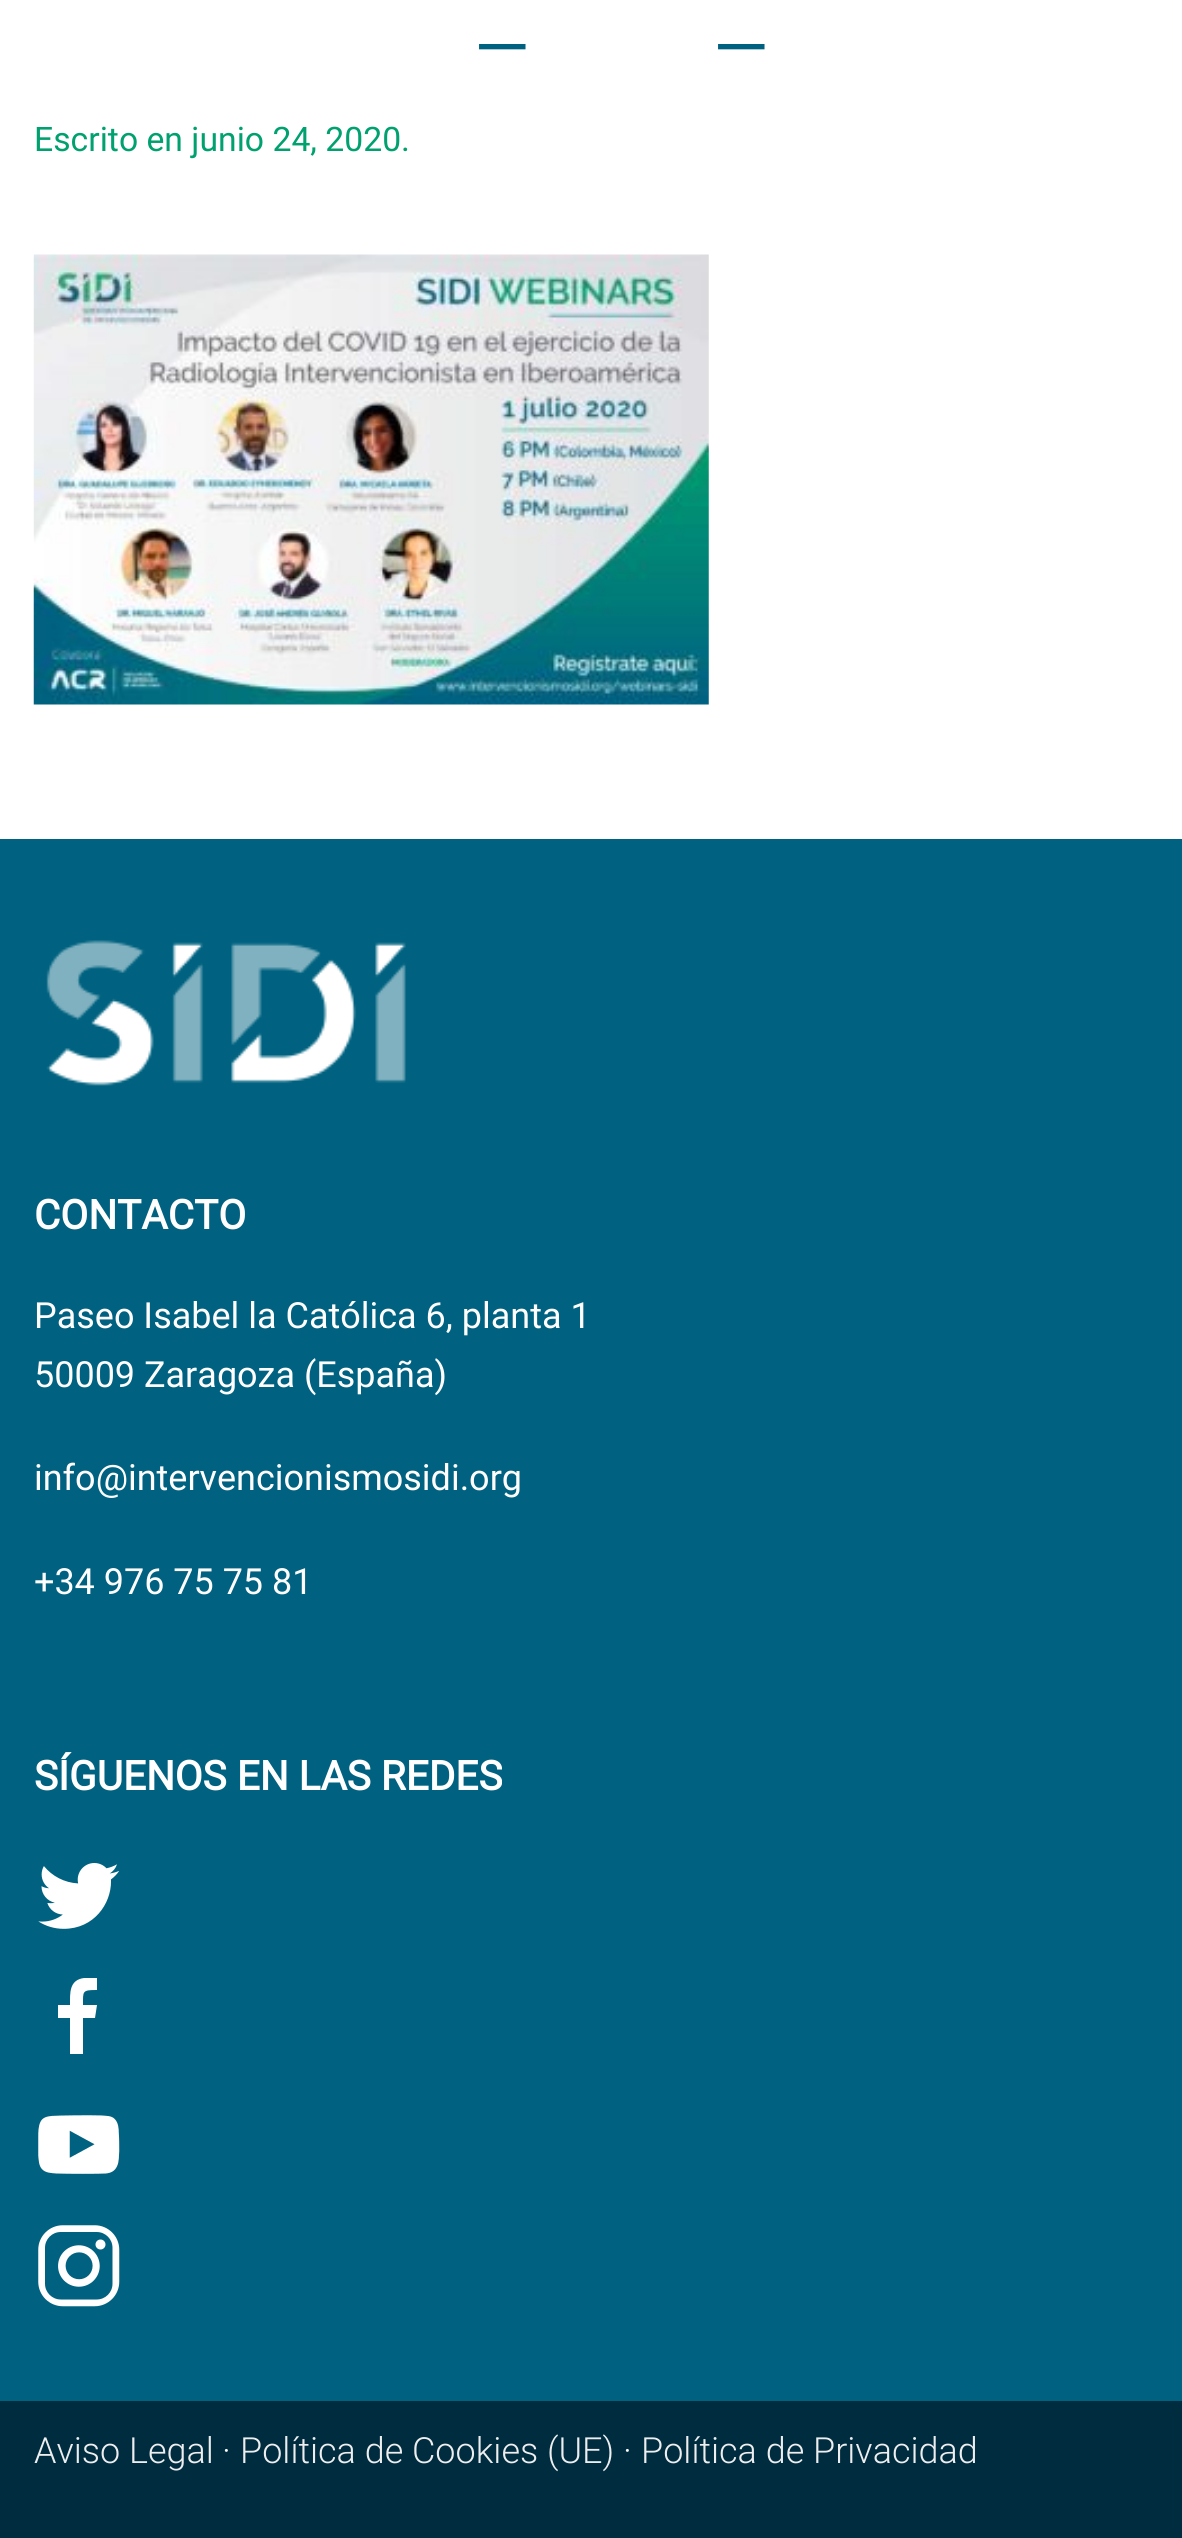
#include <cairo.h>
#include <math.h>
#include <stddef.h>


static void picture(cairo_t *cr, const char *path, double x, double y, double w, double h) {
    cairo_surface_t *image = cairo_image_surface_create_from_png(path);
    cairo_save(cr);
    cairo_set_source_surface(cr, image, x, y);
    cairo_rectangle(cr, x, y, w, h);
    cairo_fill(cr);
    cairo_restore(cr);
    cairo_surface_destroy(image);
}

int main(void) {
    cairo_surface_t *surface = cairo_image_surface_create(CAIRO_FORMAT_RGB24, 1182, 2538);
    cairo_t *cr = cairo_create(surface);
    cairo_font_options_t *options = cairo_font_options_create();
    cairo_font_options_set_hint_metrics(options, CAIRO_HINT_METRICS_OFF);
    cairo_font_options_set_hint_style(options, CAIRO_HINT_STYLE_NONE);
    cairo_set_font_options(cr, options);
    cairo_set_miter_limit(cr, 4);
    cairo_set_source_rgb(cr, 1, 1, 1);
    cairo_paint(cr);
    cairo_select_font_face(cr, "Roboto Light", CAIRO_FONT_SLANT_NORMAL, CAIRO_FONT_WEIGHT_NORMAL);
    cairo_set_font_size(cr, 108);
    cairo_set_source_rgb(cr, 0, 0.384, 0.502);
    cairo_move_to(cr, 479, 44);
    cairo_show_text(cr, "_");
    cairo_move_to(cr, 718, 44);
    cairo_show_text(cr, "_");
    cairo_select_font_face(cr, "Roboto", CAIRO_FONT_SLANT_NORMAL, CAIRO_FONT_WEIGHT_NORMAL);
    cairo_set_font_size(cr, 33.75);
    cairo_set_source_rgb(cr, 0, 0.627, 0.435);
    cairo_move_to(cr, 34, 151);
    cairo_show_text(cr, "Escrito en junio 24, 2020.");
    picture(cr, "img1.png", 33, 254, 676, 451);
    cairo_set_source_rgb(cr, 0, 0.384, 0.502);
    cairo_rectangle(cr, 0, 839, 1182, 1562);
    cairo_fill(cr);
    picture(cr, "img2.png", 46, 940, 360, 146);
    cairo_select_font_face(cr, "Roboto", CAIRO_FONT_SLANT_NORMAL, CAIRO_FONT_WEIGHT_BOLD);
    cairo_set_font_size(cr, 40.5);
    cairo_set_source_rgb(cr, 1, 1, 1);
    cairo_move_to(cr, 34, 1229);
    cairo_show_text(cr, "CONTACTO");
    cairo_select_font_face(cr, "Roboto", CAIRO_FONT_SLANT_NORMAL, CAIRO_FONT_WEIGHT_NORMAL);
    cairo_set_font_size(cr, 36);
    cairo_move_to(cr, 34, 1328);
    cairo_show_text(cr, "Paseo Isabel la Católica 6, planta 1");
    cairo_move_to(cr, 34, 1387);
    cairo_show_text(cr, "50009 Zaragoza (España)");
    cairo_move_to(cr, 34, 1490);
    cairo_show_text(cr, "info@intervencionismosidi.org");
    cairo_move_to(cr, 34, 1594);
    cairo_show_text(cr, "+34 976 75 75 81");
    cairo_select_font_face(cr, "Roboto", CAIRO_FONT_SLANT_NORMAL, CAIRO_FONT_WEIGHT_BOLD);
    cairo_set_font_size(cr, 40.5);
    cairo_move_to(cr, 34, 1790);
    cairo_show_text(cr, "SÍGUENOS EN LAS REDES");
    picture(cr, "img3.png", 38, 1863, 81, 66);
    cairo_new_path(cr);
    cairo_move_to(cr, 83, 2018);
    cairo_line_to(cr, 95, 2018);
    cairo_line_to(cr, 97, 2005);
    cairo_line_to(cr, 83, 2005);
    cairo_curve_to(cr, 83, 1991, 82, 1990, 97, 1990);
    cairo_line_to(cr, 97, 1978);
    cairo_line_to(cr, 84, 1978);
    cairo_curve_to(cr, 69, 1980, 70, 1993, 70, 2005);
    cairo_line_to(cr, 58, 2005);
    cairo_line_to(cr, 58, 2018);
    cairo_line_to(cr, 70, 2018);
    cairo_line_to(cr, 70, 2054);
    cairo_line_to(cr, 83, 2054);
    cairo_close_path(cr);
    cairo_fill(cr);
    picture(cr, "img4.png", 38, 2115, 82, 59);
    picture(cr, "img5.png", 38, 2225, 82, 82);
    cairo_set_source_rgb(cr, 0, 0.173, 0.251);
    cairo_rectangle(cr, 0, 2401, 1182, 137);
    cairo_fill(cr);
    cairo_select_font_face(cr, "Roboto Light", CAIRO_FONT_SLANT_NORMAL, CAIRO_FONT_WEIGHT_NORMAL);
    cairo_set_font_size(cr, 36);
    cairo_set_source_rgb(cr, 0.933, 0.933, 0.933);
    cairo_move_to(cr, 34, 2463);
    cairo_show_text(cr, "Aviso Legal");
    cairo_set_source_rgb(cr, 1, 1, 1);
    cairo_move_to(cr, 222, 2463);
    cairo_show_text(cr, "·");
    cairo_set_source_rgb(cr, 0.933, 0.933, 0.933);
    cairo_move_to(cr, 240, 2463);
    cairo_show_text(cr, "Política de Cookies (UE)");
    cairo_set_source_rgb(cr, 1, 1, 1);
    cairo_move_to(cr, 623, 2463);
    cairo_show_text(cr, "·");
    cairo_set_source_rgb(cr, 0.933, 0.933, 0.933);
    cairo_move_to(cr, 641, 2463);
    cairo_show_text(cr, "Política de Privacidad");
    cairo_surface_write_to_png(surface, "page.png");
    cairo_font_options_destroy(options);
    cairo_destroy(cr);
    cairo_surface_destroy(surface);
    return 0;
}
